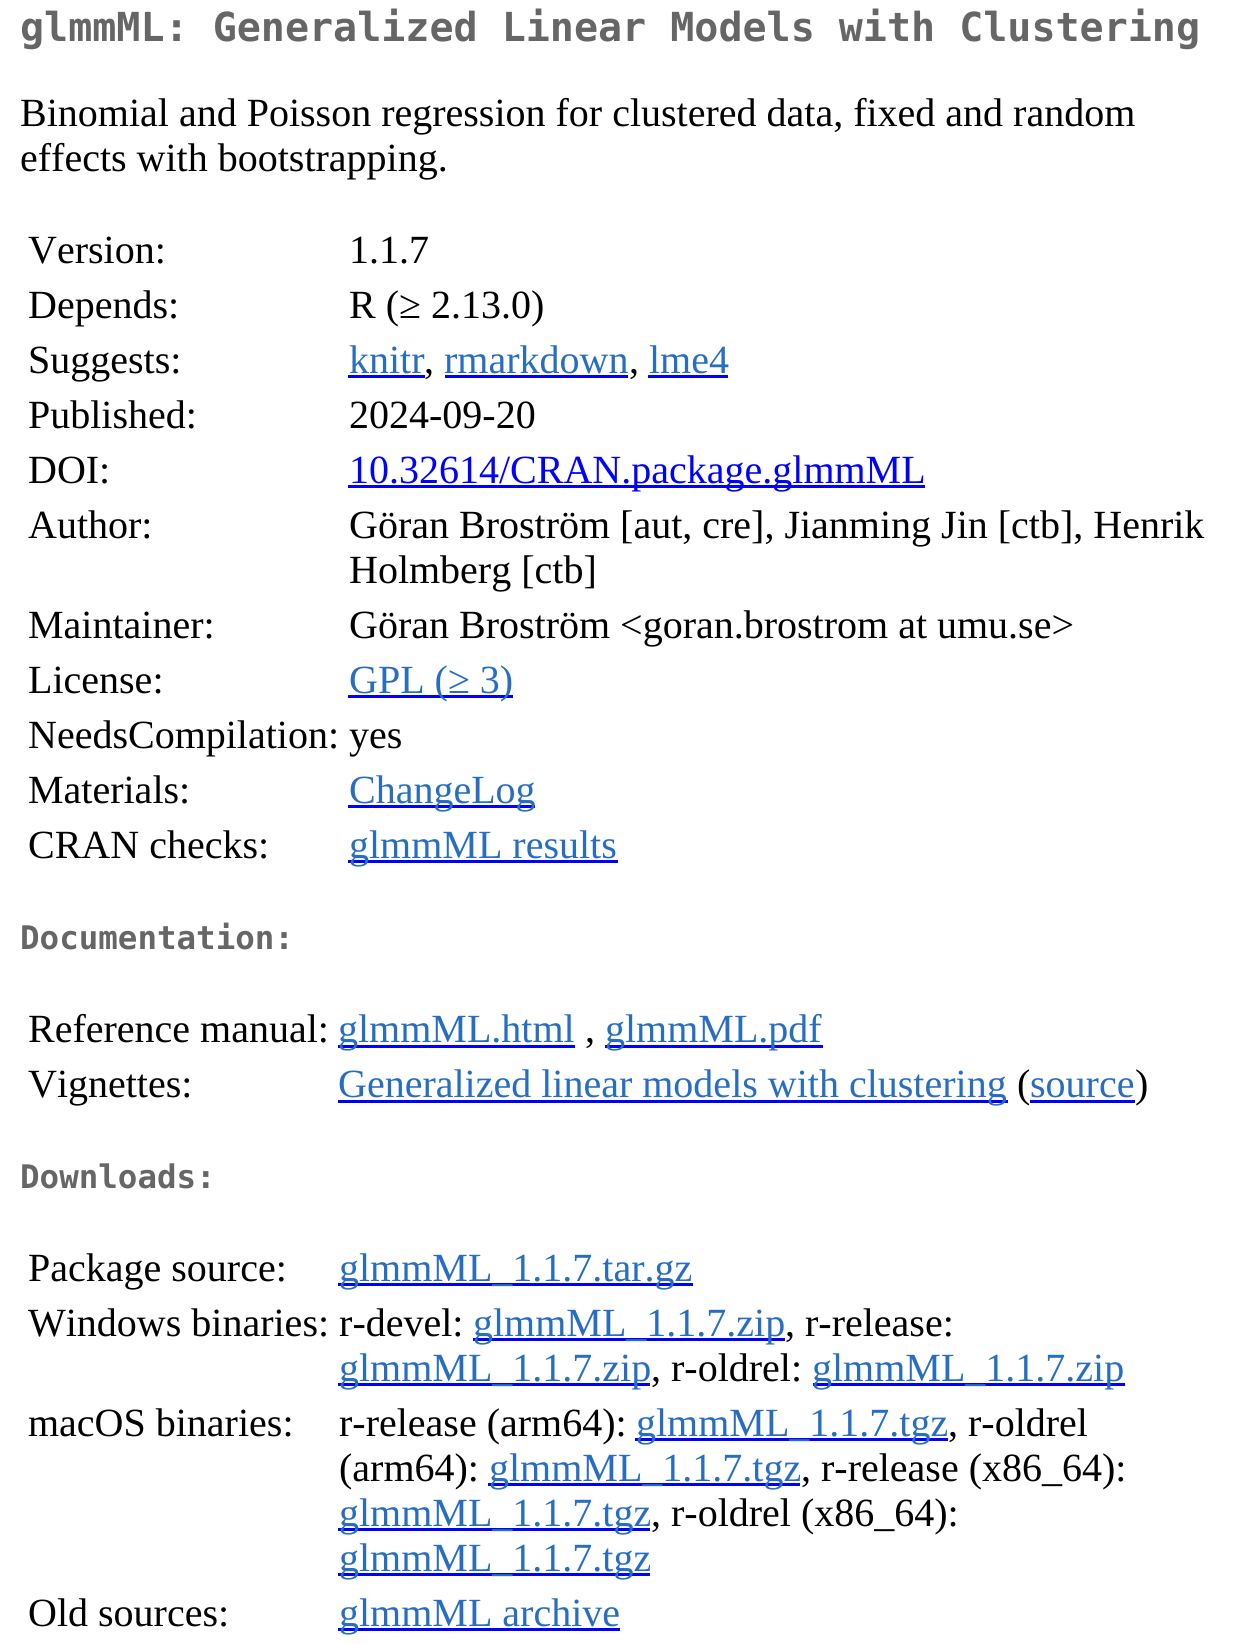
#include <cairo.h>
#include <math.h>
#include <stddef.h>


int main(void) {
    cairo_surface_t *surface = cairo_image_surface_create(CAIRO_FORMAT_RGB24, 1241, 1644);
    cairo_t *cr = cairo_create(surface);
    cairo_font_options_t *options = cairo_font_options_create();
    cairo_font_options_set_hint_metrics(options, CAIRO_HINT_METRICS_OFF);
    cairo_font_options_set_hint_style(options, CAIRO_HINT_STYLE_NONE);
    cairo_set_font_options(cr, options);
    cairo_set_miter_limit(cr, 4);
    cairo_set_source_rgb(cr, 1, 1, 1);
    cairo_paint(cr);
    cairo_select_font_face(cr, "DejaVu Sans Mono", CAIRO_FONT_SLANT_NORMAL, CAIRO_FONT_WEIGHT_BOLD);
    cairo_set_font_size(cr, 40);
    cairo_set_source_rgb(cr, 0.4, 0.4, 0.4);
    cairo_move_to(cr, 20, 41);
    cairo_show_text(cr, "glmmML: Generalized Linear Models with Clustering");
    cairo_select_font_face(cr, "Liberation Serif", CAIRO_FONT_SLANT_NORMAL, CAIRO_FONT_WEIGHT_NORMAL);
    cairo_set_source_rgb(cr, 0, 0, 0);
    cairo_move_to(cr, 20, 126);
    cairo_show_text(cr, "Binomial and Poisson regression for clustered data, fixed and random");
    cairo_move_to(cr, 20, 171);
    cairo_show_text(cr, "effects with bootstrapping.");
    cairo_move_to(cr, 28, 263);
    cairo_show_text(cr, "Version:");
    cairo_move_to(cr, 349, 263);
    cairo_show_text(cr, "1.1.7");
    cairo_move_to(cr, 28, 318);
    cairo_show_text(cr, "Depends:");
    cairo_move_to(cr, 349, 318);
    cairo_show_text(cr, "R (≥ 2.13.0)");
    cairo_move_to(cr, 28, 373);
    cairo_show_text(cr, "Suggests:");
    cairo_set_source_rgb(cr, 0.153, 0.427, 0.765);
    cairo_move_to(cr, 349, 373);
    cairo_show_text(cr, "knitr");
    cairo_set_source_rgb(cr, 0, 0, 1);
    cairo_rectangle(cr, 348, 375, 77, 3);
    cairo_fill(cr);
    cairo_set_source_rgb(cr, 0, 0, 0);
    cairo_move_to(cr, 424, 373);
    cairo_show_text(cr, ",");
    cairo_set_source_rgb(cr, 0.153, 0.427, 0.765);
    cairo_move_to(cr, 444, 373);
    cairo_show_text(cr, "rmarkdown");
    cairo_set_source_rgb(cr, 0, 0, 1);
    cairo_rectangle(cr, 445, 375, 183, 3);
    cairo_fill(cr);
    cairo_set_source_rgb(cr, 0, 0, 0);
    cairo_move_to(cr, 629, 373);
    cairo_show_text(cr, ",");
    cairo_set_source_rgb(cr, 0.153, 0.427, 0.765);
    cairo_move_to(cr, 649, 373);
    cairo_show_text(cr, "lme4");
    cairo_set_source_rgb(cr, 0, 0, 1);
    cairo_rectangle(cr, 648, 375, 80, 3);
    cairo_fill(cr);
    cairo_set_source_rgb(cr, 0, 0, 0);
    cairo_move_to(cr, 28, 428);
    cairo_show_text(cr, "Published:");
    cairo_move_to(cr, 349, 428);
    cairo_show_text(cr, "2024-09-20");
    cairo_move_to(cr, 28, 483);
    cairo_show_text(cr, "DOI:");
    cairo_set_source_rgb(cr, 0, 0, 1);
    cairo_rectangle(cr, 348, 485, 577, 3);
    cairo_fill(cr);
    cairo_move_to(cr, 349, 483);
    cairo_show_text(cr, "10.32614/CRAN.package.glmmML");
    cairo_set_source_rgb(cr, 0, 0, 0);
    cairo_move_to(cr, 28, 538);
    cairo_show_text(cr, "Author:");
    cairo_move_to(cr, 349, 538);
    cairo_show_text(cr, "Göran Broström [aut, cre], Jianming Jin [ctb], Henrik");
    cairo_move_to(cr, 349, 583);
    cairo_show_text(cr, "Holmberg [ctb]");
    cairo_move_to(cr, 28, 638);
    cairo_show_text(cr, "Maintainer:");
    cairo_move_to(cr, 349, 638);
    cairo_show_text(cr, "Göran Broström <goran.brostrom at umu.se>");
    cairo_move_to(cr, 28, 693);
    cairo_show_text(cr, "License:");
    cairo_set_source_rgb(cr, 0, 0, 1);
    cairo_rectangle(cr, 348, 695, 165, 3);
    cairo_fill(cr);
    cairo_set_source_rgb(cr, 0.153, 0.427, 0.765);
    cairo_move_to(cr, 349, 693);
    cairo_show_text(cr, "GPL (≥ 3)");
    cairo_set_source_rgb(cr, 0, 0, 0);
    cairo_move_to(cr, 28, 748);
    cairo_show_text(cr, "NeedsCompilation: yes");
    cairo_move_to(cr, 28, 803);
    cairo_show_text(cr, "Materials:");
    cairo_set_source_rgb(cr, 0, 0, 1);
    cairo_rectangle(cr, 348, 805, 187, 3);
    cairo_fill(cr);
    cairo_set_source_rgb(cr, 0.153, 0.427, 0.765);
    cairo_move_to(cr, 349, 803);
    cairo_show_text(cr, "ChangeLog");
    cairo_set_source_rgb(cr, 0, 0, 0);
    cairo_move_to(cr, 28, 858);
    cairo_show_text(cr, "CRAN checks:");
    cairo_set_source_rgb(cr, 0, 0, 1);
    cairo_rectangle(cr, 348, 860, 270, 3);
    cairo_fill(cr);
    cairo_set_source_rgb(cr, 0.153, 0.427, 0.765);
    cairo_move_to(cr, 349, 858);
    cairo_show_text(cr, "glmmML results");
    cairo_select_font_face(cr, "DejaVu Sans Mono", CAIRO_FONT_SLANT_NORMAL, CAIRO_FONT_WEIGHT_BOLD);
    cairo_set_font_size(cr, 32.5);
    cairo_set_source_rgb(cr, 0.4, 0.4, 0.4);
    cairo_move_to(cr, 20, 949);
    cairo_show_text(cr, "Documentation:");
    cairo_select_font_face(cr, "Liberation Serif", CAIRO_FONT_SLANT_NORMAL, CAIRO_FONT_WEIGHT_NORMAL);
    cairo_set_font_size(cr, 40);
    cairo_set_source_rgb(cr, 0, 0, 0);
    cairo_move_to(cr, 28, 1042);
    cairo_show_text(cr, "Reference manual:");
    cairo_set_source_rgb(cr, 0, 0, 1);
    cairo_rectangle(cr, 338, 1045, 237, 3);
    cairo_fill(cr);
    cairo_set_source_rgb(cr, 0.153, 0.427, 0.765);
    cairo_move_to(cr, 338, 1042);
    cairo_show_text(cr, "glmmML.html");
    cairo_set_source_rgb(cr, 0, 0, 0);
    cairo_move_to(cr, 585, 1042);
    cairo_show_text(cr, ",");
    cairo_set_source_rgb(cr, 0, 0, 1);
    cairo_rectangle(cr, 605, 1045, 218, 3);
    cairo_fill(cr);
    cairo_set_source_rgb(cr, 0.153, 0.427, 0.765);
    cairo_move_to(cr, 605, 1042);
    cairo_show_text(cr, "glmmML.pdf");
    cairo_set_source_rgb(cr, 0, 0, 0);
    cairo_move_to(cr, 28, 1097);
    cairo_show_text(cr, "Vignettes:");
    cairo_set_source_rgb(cr, 0, 0, 1);
    cairo_rectangle(cr, 338, 1100, 670, 3);
    cairo_fill(cr);
    cairo_set_source_rgb(cr, 0.153, 0.427, 0.765);
    cairo_move_to(cr, 338, 1097);
    cairo_show_text(cr, "Generalized linear models with clustering");
    cairo_set_source_rgb(cr, 0, 0, 0);
    cairo_move_to(cr, 1017, 1097);
    cairo_show_text(cr, "(");
    cairo_set_source_rgb(cr, 0.153, 0.427, 0.765);
    cairo_move_to(cr, 1030, 1097);
    cairo_show_text(cr, "source");
    cairo_set_source_rgb(cr, 0, 0, 1);
    cairo_rectangle(cr, 1030, 1100, 105, 3);
    cairo_fill(cr);
    cairo_set_source_rgb(cr, 0, 0, 0);
    cairo_move_to(cr, 1135, 1097);
    cairo_show_text(cr, ")");
    cairo_select_font_face(cr, "DejaVu Sans Mono", CAIRO_FONT_SLANT_NORMAL, CAIRO_FONT_WEIGHT_BOLD);
    cairo_set_font_size(cr, 32.5);
    cairo_set_source_rgb(cr, 0.4, 0.4, 0.4);
    cairo_move_to(cr, 20, 1188);
    cairo_show_text(cr, "Downloads:");
    cairo_select_font_face(cr, "Liberation Serif", CAIRO_FONT_SLANT_NORMAL, CAIRO_FONT_WEIGHT_NORMAL);
    cairo_set_font_size(cr, 40);
    cairo_set_source_rgb(cr, 0, 0, 0);
    cairo_move_to(cr, 28, 1281);
    cairo_show_text(cr, "Package source:");
    cairo_set_source_rgb(cr, 0, 0, 1);
    cairo_rectangle(cr, 338, 1283, 355, 3);
    cairo_fill(cr);
    cairo_set_source_rgb(cr, 0.153, 0.427, 0.765);
    cairo_move_to(cr, 339, 1281);
    cairo_show_text(cr, "glmmML_1.1.7.tar.gz");
    cairo_set_source_rgb(cr, 0, 0, 0);
    cairo_move_to(cr, 28, 1336);
    cairo_show_text(cr, "Windows binaries: r-devel:");
    cairo_set_source_rgb(cr, 0, 0, 1);
    cairo_rectangle(cr, 473, 1338, 312, 3);
    cairo_fill(cr);
    cairo_set_source_rgb(cr, 0.153, 0.427, 0.765);
    cairo_move_to(cr, 473, 1336);
    cairo_show_text(cr, "glmmML_1.1.7.zip");
    cairo_set_source_rgb(cr, 0, 0, 0);
    cairo_move_to(cr, 785, 1336);
    cairo_show_text(cr, ", r-release:");
    cairo_set_source_rgb(cr, 0, 0, 1);
    cairo_rectangle(cr, 338, 1383, 312, 3);
    cairo_fill(cr);
    cairo_set_source_rgb(cr, 0.153, 0.427, 0.765);
    cairo_move_to(cr, 339, 1381);
    cairo_show_text(cr, "glmmML_1.1.7.zip");
    cairo_set_source_rgb(cr, 0, 0, 0);
    cairo_move_to(cr, 651, 1381);
    cairo_show_text(cr, ", r-oldrel:");
    cairo_set_source_rgb(cr, 0, 0, 1);
    cairo_rectangle(cr, 813, 1383, 312, 3);
    cairo_fill(cr);
    cairo_set_source_rgb(cr, 0.153, 0.427, 0.765);
    cairo_move_to(cr, 812, 1381);
    cairo_show_text(cr, "glmmML_1.1.7.zip");
    cairo_set_source_rgb(cr, 0, 0, 0);
    cairo_move_to(cr, 28, 1436);
    cairo_show_text(cr, "macOS binaries:");
    cairo_move_to(cr, 339, 1436);
    cairo_show_text(cr, "r-release (arm64):");
    cairo_set_source_rgb(cr, 0, 0, 1);
    cairo_rectangle(cr, 635, 1438, 313, 3);
    cairo_fill(cr);
    cairo_set_source_rgb(cr, 0.153, 0.427, 0.765);
    cairo_move_to(cr, 636, 1436);
    cairo_show_text(cr, "glmmML_1.1.7.tgz");
    cairo_set_source_rgb(cr, 0, 0, 0);
    cairo_move_to(cr, 948, 1436);
    cairo_show_text(cr, ", r-oldrel");
    cairo_move_to(cr, 339, 1481);
    cairo_show_text(cr, "(arm64):");
    cairo_set_source_rgb(cr, 0, 0, 1);
    cairo_rectangle(cr, 488, 1483, 312, 3);
    cairo_fill(cr);
    cairo_set_source_rgb(cr, 0.153, 0.427, 0.765);
    cairo_move_to(cr, 489, 1481);
    cairo_show_text(cr, "glmmML_1.1.7.tgz");
    cairo_set_source_rgb(cr, 0, 0, 0);
    cairo_move_to(cr, 801, 1481);
    cairo_show_text(cr, ", r-release (x86_64):");
    cairo_set_source_rgb(cr, 0, 0, 1);
    cairo_rectangle(cr, 338, 1528, 312, 3);
    cairo_fill(cr);
    cairo_set_source_rgb(cr, 0.153, 0.427, 0.765);
    cairo_move_to(cr, 339, 1526);
    cairo_show_text(cr, "glmmML_1.1.7.tgz");
    cairo_set_source_rgb(cr, 0, 0, 0);
    cairo_move_to(cr, 651, 1526);
    cairo_show_text(cr, ", r-oldrel (x86_64):");
    cairo_set_source_rgb(cr, 0, 0, 1);
    cairo_rectangle(cr, 338, 1573, 312, 3);
    cairo_fill(cr);
    cairo_set_source_rgb(cr, 0.153, 0.427, 0.765);
    cairo_move_to(cr, 339, 1571);
    cairo_show_text(cr, "glmmML_1.1.7.tgz");
    cairo_set_source_rgb(cr, 0, 0, 0);
    cairo_move_to(cr, 28, 1626);
    cairo_show_text(cr, "Old sources:");
    cairo_set_source_rgb(cr, 0, 0, 1);
    cairo_rectangle(cr, 338, 1628, 282, 3);
    cairo_fill(cr);
    cairo_set_source_rgb(cr, 0.153, 0.427, 0.765);
    cairo_move_to(cr, 339, 1626);
    cairo_show_text(cr, "glmmML archive");
    cairo_surface_write_to_png(surface, "page.png");
    cairo_font_options_destroy(options);
    cairo_destroy(cr);
    cairo_surface_destroy(surface);
    return 0;
}
